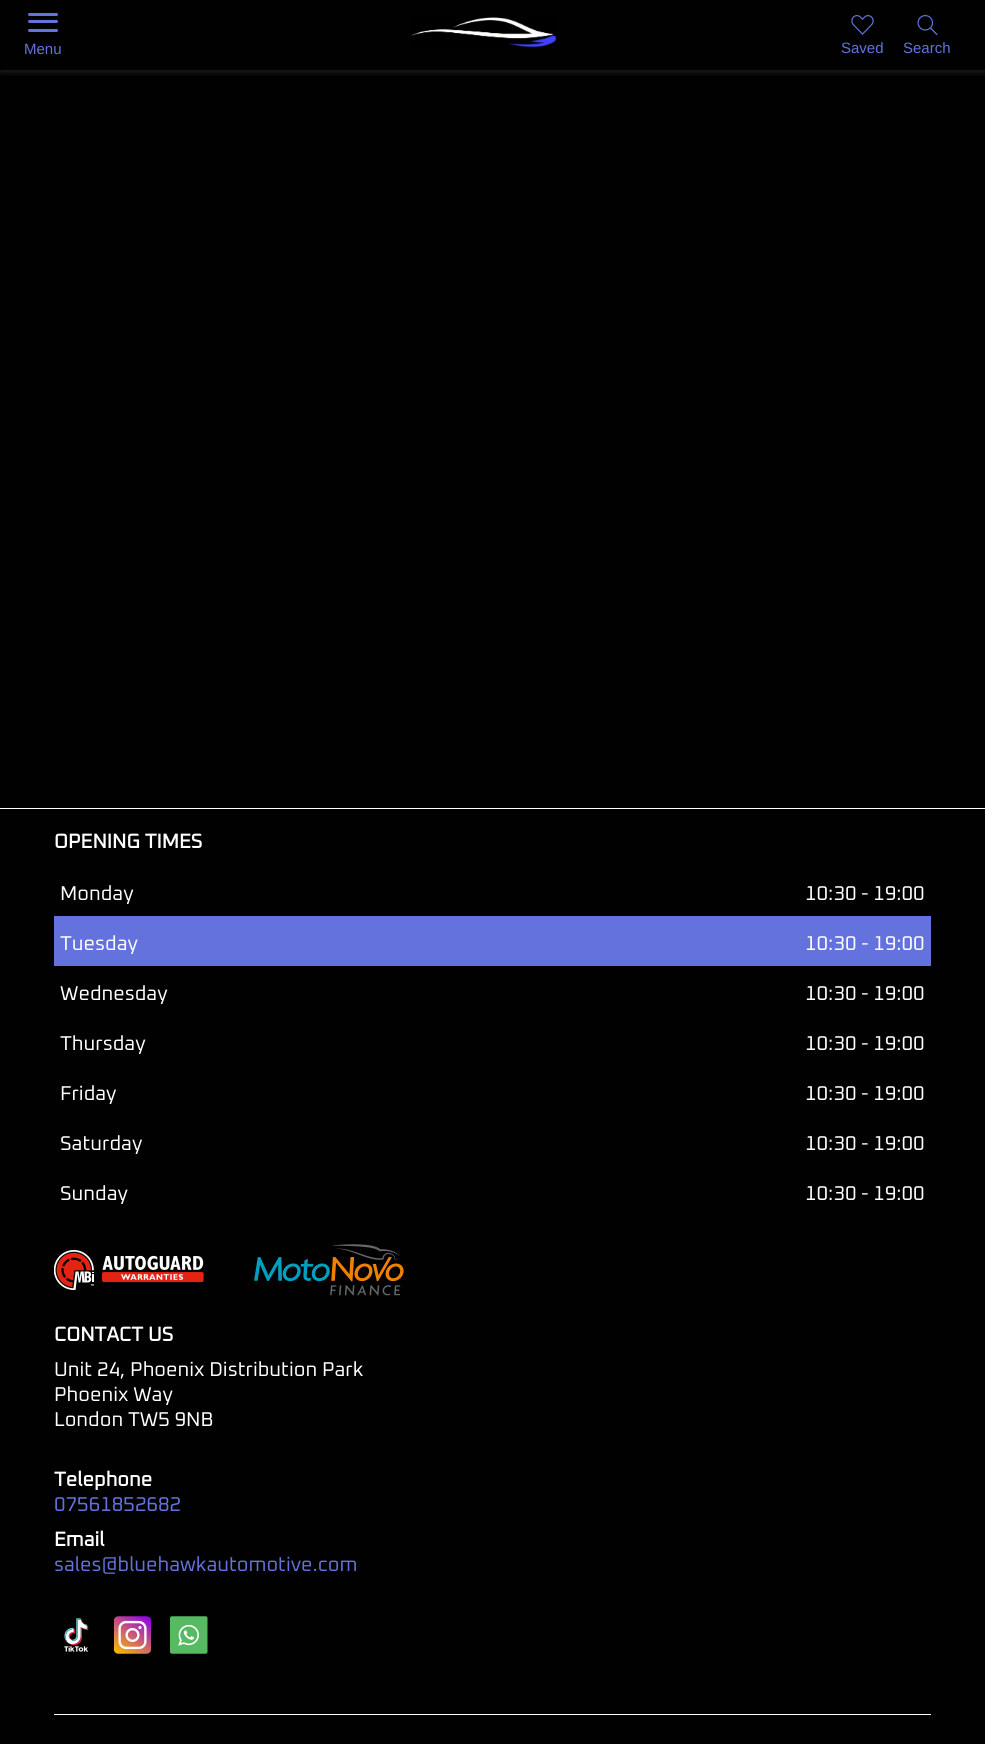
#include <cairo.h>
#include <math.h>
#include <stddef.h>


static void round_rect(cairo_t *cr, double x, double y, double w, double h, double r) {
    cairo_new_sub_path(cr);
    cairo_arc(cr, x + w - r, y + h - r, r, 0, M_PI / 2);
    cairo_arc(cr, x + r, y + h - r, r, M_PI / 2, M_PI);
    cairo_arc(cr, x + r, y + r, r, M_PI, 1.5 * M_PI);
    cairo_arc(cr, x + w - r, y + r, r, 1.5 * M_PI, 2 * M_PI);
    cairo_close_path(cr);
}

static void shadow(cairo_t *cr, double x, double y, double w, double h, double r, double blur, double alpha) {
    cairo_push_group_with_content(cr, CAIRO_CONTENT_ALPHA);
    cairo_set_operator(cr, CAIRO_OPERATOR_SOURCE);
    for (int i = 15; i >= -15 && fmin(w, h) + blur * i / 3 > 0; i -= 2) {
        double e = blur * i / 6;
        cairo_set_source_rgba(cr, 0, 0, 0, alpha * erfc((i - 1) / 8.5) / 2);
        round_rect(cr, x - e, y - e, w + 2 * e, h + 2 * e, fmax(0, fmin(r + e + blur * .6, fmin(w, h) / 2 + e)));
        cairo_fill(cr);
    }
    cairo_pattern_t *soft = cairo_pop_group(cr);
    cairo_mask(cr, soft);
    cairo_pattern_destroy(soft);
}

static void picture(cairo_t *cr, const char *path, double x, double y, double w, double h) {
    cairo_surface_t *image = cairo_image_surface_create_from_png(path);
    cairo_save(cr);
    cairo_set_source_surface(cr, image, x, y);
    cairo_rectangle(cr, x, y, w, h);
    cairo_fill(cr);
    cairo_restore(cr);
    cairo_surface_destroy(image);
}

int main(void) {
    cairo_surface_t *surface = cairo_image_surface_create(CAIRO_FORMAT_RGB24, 985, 1744);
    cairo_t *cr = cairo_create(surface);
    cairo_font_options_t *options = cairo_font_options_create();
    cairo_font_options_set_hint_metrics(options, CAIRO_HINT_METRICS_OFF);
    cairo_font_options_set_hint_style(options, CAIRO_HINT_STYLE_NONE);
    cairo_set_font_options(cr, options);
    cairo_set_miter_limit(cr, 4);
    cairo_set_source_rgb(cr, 0.004, 0.004, 0.004);
    cairo_paint(cr);
    cairo_save(cr);
    cairo_rectangle(cr, 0, 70, 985, 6);
    cairo_clip(cr);
    cairo_set_source_rgb(cr, 1, 1, 1);
    shadow(cr, 0, 3, 985, 70, 0, 3, 0.1);
    cairo_restore(cr);
    cairo_set_source_rgb(cr, 0.392, 0.447, 0.871);
    round_rect(cr, 28, 13, 30, 3, 1.5);
    cairo_fill(cr);
    round_rect(cr, 28, 20, 30, 3, 1.5);
    cairo_fill(cr);
    round_rect(cr, 28, 29, 30, 3, 1.5);
    cairo_fill(cr);
    cairo_select_font_face(cr, "Liberation Sans", CAIRO_FONT_SLANT_NORMAL, CAIRO_FONT_WEIGHT_NORMAL);
    cairo_set_font_size(cr, 15);
    cairo_move_to(cr, 24, 54);
    cairo_show_text(cr, "Menu");
    picture(cr, "img1.png", 411, 17, 146, 31);
    picture(cr, "img2.png", 851, 15, 23, 20);
    cairo_move_to(cr, 841, 53);
    cairo_show_text(cr, "Saved");
    picture(cr, "img3.png", 917, 15, 21, 20);
    cairo_move_to(cr, 903, 53);
    cairo_show_text(cr, "Search");
    cairo_set_source_rgb(cr, 1, 1, 1);
    cairo_rectangle(cr, 0, 808, 985, 1);
    cairo_fill(cr);
    cairo_select_font_face(cr, "Oxanium", CAIRO_FONT_SLANT_NORMAL, CAIRO_FONT_WEIGHT_BOLD);
    cairo_set_font_size(cr, 20);
    cairo_move_to(cr, 54, 848);
    cairo_show_text(cr, "OPENING TIMES");
    cairo_select_font_face(cr, "Oxanium ExtraLight", CAIRO_FONT_SLANT_NORMAL, CAIRO_FONT_WEIGHT_NORMAL);
    cairo_move_to(cr, 60, 900);
    cairo_show_text(cr, "Monday");
    cairo_move_to(cr, 805, 900);
    cairo_show_text(cr, "10:30 - 19:00");
    cairo_set_source_rgb(cr, 0.392, 0.447, 0.871);
    cairo_rectangle(cr, 54, 916, 877, 50);
    cairo_fill(cr);
    cairo_set_source_rgb(cr, 1, 1, 1);
    cairo_move_to(cr, 60, 950);
    cairo_show_text(cr, "Tuesday");
    cairo_move_to(cr, 805, 950);
    cairo_show_text(cr, "10:30 - 19:00");
    cairo_move_to(cr, 60, 1000);
    cairo_show_text(cr, "Wednesday");
    cairo_move_to(cr, 805, 1000);
    cairo_show_text(cr, "10:30 - 19:00");
    cairo_move_to(cr, 60, 1050);
    cairo_show_text(cr, "Thursday");
    cairo_move_to(cr, 805, 1050);
    cairo_show_text(cr, "10:30 - 19:00");
    cairo_move_to(cr, 60, 1100);
    cairo_show_text(cr, "Friday");
    cairo_move_to(cr, 805, 1100);
    cairo_show_text(cr, "10:30 - 19:00");
    cairo_move_to(cr, 60, 1150);
    cairo_show_text(cr, "Saturday");
    cairo_move_to(cr, 805, 1150);
    cairo_show_text(cr, "10:30 - 19:00");
    cairo_move_to(cr, 60, 1200);
    cairo_show_text(cr, "Sunday");
    cairo_move_to(cr, 805, 1200);
    cairo_show_text(cr, "10:30 - 19:00");
    picture(cr, "img4.png", 54, 1250, 150, 40);
    picture(cr, "img5.png", 254, 1244, 150, 52);
    cairo_select_font_face(cr, "Oxanium", CAIRO_FONT_SLANT_NORMAL, CAIRO_FONT_WEIGHT_BOLD);
    cairo_move_to(cr, 54, 1341);
    cairo_show_text(cr, "CONTACT US");
    cairo_select_font_face(cr, "Oxanium ExtraLight", CAIRO_FONT_SLANT_NORMAL, CAIRO_FONT_WEIGHT_NORMAL);
    cairo_move_to(cr, 54, 1376);
    cairo_show_text(cr, "Unit 24, Phoenix Distribution Park");
    cairo_move_to(cr, 54, 1401);
    cairo_show_text(cr, "Phoenix Way");
    cairo_move_to(cr, 54, 1426);
    cairo_show_text(cr, "London TW5 9NB");
    cairo_select_font_face(cr, "Oxanium", CAIRO_FONT_SLANT_NORMAL, CAIRO_FONT_WEIGHT_BOLD);
    cairo_move_to(cr, 54, 1486);
    cairo_show_text(cr, "Telephone");
    cairo_select_font_face(cr, "Oxanium ExtraLight", CAIRO_FONT_SLANT_NORMAL, CAIRO_FONT_WEIGHT_NORMAL);
    cairo_set_source_rgb(cr, 0.392, 0.447, 0.871);
    cairo_move_to(cr, 54, 1511);
    cairo_show_text(cr, "07561852682");
    cairo_select_font_face(cr, "Oxanium", CAIRO_FONT_SLANT_NORMAL, CAIRO_FONT_WEIGHT_BOLD);
    cairo_set_source_rgb(cr, 1, 1, 1);
    cairo_move_to(cr, 54, 1546);
    cairo_show_text(cr, "Email");
    cairo_select_font_face(cr, "Oxanium ExtraLight", CAIRO_FONT_SLANT_NORMAL, CAIRO_FONT_WEIGHT_NORMAL);
    cairo_set_source_rgb(cr, 0.392, 0.447, 0.871);
    cairo_move_to(cr, 54, 1571);
    cairo_show_text(cr, "sales@bluehawkautomotive.com");
    picture(cr, "img6.png", 64, 1618, 25, 34);
    picture(cr, "img7.png", 114, 1616, 37, 38);
    picture(cr, "img8.png", 170, 1616, 38, 38);
    cairo_set_source_rgb(cr, 1, 1, 1);
    cairo_rectangle(cr, 54, 1714, 877, 1);
    cairo_fill(cr);
    cairo_surface_write_to_png(surface, "page.png");
    cairo_font_options_destroy(options);
    cairo_destroy(cr);
    cairo_surface_destroy(surface);
    return 0;
}
